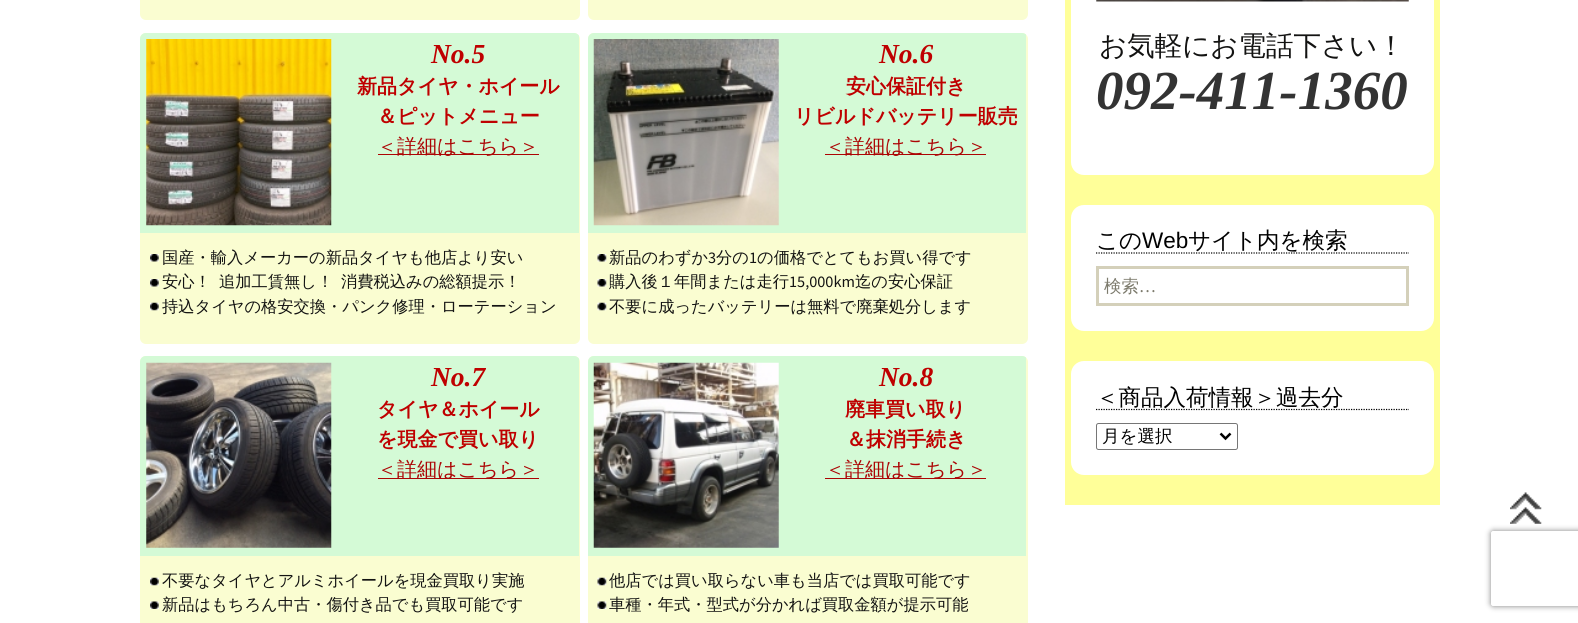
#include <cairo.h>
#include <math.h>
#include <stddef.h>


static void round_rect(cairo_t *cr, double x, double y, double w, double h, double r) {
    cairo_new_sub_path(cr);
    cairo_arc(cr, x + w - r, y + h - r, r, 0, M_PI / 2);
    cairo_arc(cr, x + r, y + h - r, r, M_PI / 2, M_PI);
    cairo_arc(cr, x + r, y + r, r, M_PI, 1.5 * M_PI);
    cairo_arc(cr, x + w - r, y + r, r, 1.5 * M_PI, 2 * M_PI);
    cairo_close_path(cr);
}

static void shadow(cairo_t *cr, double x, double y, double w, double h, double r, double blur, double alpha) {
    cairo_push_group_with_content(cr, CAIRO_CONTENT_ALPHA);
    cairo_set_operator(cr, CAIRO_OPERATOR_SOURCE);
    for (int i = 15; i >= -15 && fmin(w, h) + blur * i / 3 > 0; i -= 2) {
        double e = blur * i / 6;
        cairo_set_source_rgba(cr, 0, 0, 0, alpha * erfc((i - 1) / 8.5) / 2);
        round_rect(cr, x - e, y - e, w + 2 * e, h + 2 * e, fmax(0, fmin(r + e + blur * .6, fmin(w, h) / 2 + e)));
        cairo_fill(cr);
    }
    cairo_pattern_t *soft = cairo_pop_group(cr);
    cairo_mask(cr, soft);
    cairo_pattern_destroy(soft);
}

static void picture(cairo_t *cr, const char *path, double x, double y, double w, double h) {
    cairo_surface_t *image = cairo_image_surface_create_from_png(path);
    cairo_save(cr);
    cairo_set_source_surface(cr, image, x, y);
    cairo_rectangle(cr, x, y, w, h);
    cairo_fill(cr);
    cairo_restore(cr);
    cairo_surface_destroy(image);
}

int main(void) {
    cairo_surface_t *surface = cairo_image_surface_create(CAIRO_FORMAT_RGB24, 1578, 623);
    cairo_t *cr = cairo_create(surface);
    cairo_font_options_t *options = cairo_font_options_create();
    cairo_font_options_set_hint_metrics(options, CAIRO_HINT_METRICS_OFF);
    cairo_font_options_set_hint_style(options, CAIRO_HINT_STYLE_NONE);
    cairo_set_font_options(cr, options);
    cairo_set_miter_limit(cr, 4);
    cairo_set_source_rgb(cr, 1, 1, 1);
    cairo_paint(cr);
    cairo_set_source_rgb(cr, 0.98, 0.992, 0.82);
    round_rect(cr, 140, -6, 440, 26, 6);
    cairo_fill(cr);
    round_rect(cr, 588, -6, 440, 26, 6);
    cairo_fill(cr);
    round_rect(cr, 140, 33, 440, 311, 6);
    cairo_fill(cr);
    cairo_set_source_rgb(cr, 0.831, 0.98, 0.839);
    cairo_new_path(cr);
    cairo_move_to(cr, 146, 33);
    cairo_line_to(cr, 338, 33);
    cairo_line_to(cr, 338, 233);
    cairo_line_to(cr, 140, 233);
    cairo_line_to(cr, 140, 39);
    cairo_curve_to(cr, 140, 35.5, 142.5, 33, 146, 33);
    cairo_close_path(cr);
    cairo_fill(cr);
    picture(cr, "img1.png", 146, 39, 186, 187);
    cairo_save(cr);
    round_rect(cr, 140, 33, 440, 311, 6);
    cairo_clip(cr);
    cairo_rectangle(cr, 338, 33, 241, 200);
    cairo_fill(cr);
    cairo_restore(cr);
    cairo_select_font_face(cr, "Liberation Serif", CAIRO_FONT_SLANT_ITALIC, CAIRO_FONT_WEIGHT_BOLD);
    cairo_set_font_size(cr, 27.5);
    cairo_set_source_rgb(cr, 0.749, 0, 0);
    cairo_move_to(cr, 431, 63);
    cairo_show_text(cr, "No.5");
    cairo_select_font_face(cr, "WenQuanYi Zen Hei", CAIRO_FONT_SLANT_NORMAL, CAIRO_FONT_WEIGHT_BOLD);
    cairo_set_font_size(cr, 20);
    cairo_move_to(cr, 357, 93);
    cairo_show_text(cr, "新品タイヤ・ホイール");
    cairo_move_to(cr, 377, 123);
    cairo_show_text(cr, "＆ピットメニュー");
    cairo_set_source_rgb(cr, 0.675, 0.016, 0.016);
    cairo_rectangle(cr, 378, 154, 161, 1);
    cairo_fill(cr);
    cairo_select_font_face(cr, "WenQuanYi Zen Hei Medium", CAIRO_FONT_SLANT_NORMAL, CAIRO_FONT_WEIGHT_NORMAL);
    cairo_move_to(cr, 377, 153);
    cairo_show_text(cr, "＜詳細はこちら＞");
    picture(cr, "img2.png", 150, 254, 9, 8);
    cairo_set_font_size(cr, 16.25);
    cairo_set_source_rgb(cr, 0.078, 0.078, 0.071);
    cairo_move_to(cr, 162, 263);
    cairo_show_text(cr, "国産・輸入メーカーの新品タイヤも他店より安い");
    picture(cr, "img2.png", 150, 279, 9, 8);
    cairo_move_to(cr, 162, 287);
    cairo_show_text(cr, "安心！");
    cairo_move_to(cr, 219, 287);
    cairo_show_text(cr, "追加工賃無し！");
    cairo_move_to(cr, 341, 287);
    cairo_show_text(cr, "消費税込みの総額提示！");
    picture(cr, "img3.png", 150, 302, 9, 9);
    cairo_move_to(cr, 162, 312);
    cairo_show_text(cr, "持込タイヤの格安交換・パンク修理・ローテーション");
    cairo_set_source_rgb(cr, 0.98, 0.992, 0.82);
    round_rect(cr, 588, 33, 440, 311, 6);
    cairo_fill(cr);
    cairo_set_source_rgb(cr, 0.831, 0.98, 0.839);
    cairo_new_path(cr);
    cairo_move_to(cr, 594, 33);
    cairo_line_to(cr, 785, 33);
    cairo_line_to(cr, 785, 233);
    cairo_line_to(cr, 588, 233);
    cairo_line_to(cr, 588, 39);
    cairo_curve_to(cr, 588, 35.5, 590.5, 33, 594, 33);
    cairo_close_path(cr);
    cairo_fill(cr);
    picture(cr, "img4.png", 593, 39, 186, 187);
    cairo_save(cr);
    round_rect(cr, 588, 33, 440, 311, 6);
    cairo_clip(cr);
    cairo_rectangle(cr, 785, 33, 241, 200);
    cairo_fill(cr);
    cairo_restore(cr);
    cairo_select_font_face(cr, "Liberation Serif", CAIRO_FONT_SLANT_ITALIC, CAIRO_FONT_WEIGHT_BOLD);
    cairo_set_font_size(cr, 27.5);
    cairo_set_source_rgb(cr, 0.749, 0, 0);
    cairo_move_to(cr, 879, 63);
    cairo_show_text(cr, "No.6");
    cairo_select_font_face(cr, "WenQuanYi Zen Hei", CAIRO_FONT_SLANT_NORMAL, CAIRO_FONT_WEIGHT_BOLD);
    cairo_set_font_size(cr, 20);
    cairo_move_to(cr, 846, 93);
    cairo_show_text(cr, "安心保証付き");
    cairo_move_to(cr, 794, 123);
    cairo_show_text(cr, "リビルドバッテリー販売");
    cairo_set_source_rgb(cr, 0.675, 0.016, 0.016);
    cairo_rectangle(cr, 825, 154, 161, 1);
    cairo_fill(cr);
    cairo_select_font_face(cr, "WenQuanYi Zen Hei Medium", CAIRO_FONT_SLANT_NORMAL, CAIRO_FONT_WEIGHT_NORMAL);
    cairo_move_to(cr, 825, 153);
    cairo_show_text(cr, "＜詳細はこちら＞");
    picture(cr, "img5.png", 597, 254, 10, 8);
    cairo_set_font_size(cr, 16.25);
    cairo_set_source_rgb(cr, 0.078, 0.078, 0.071);
    cairo_move_to(cr, 609, 263);
    cairo_show_text(cr, "新品のわずか");
    cairo_select_font_face(cr, "Source Sans Pro", CAIRO_FONT_SLANT_NORMAL, CAIRO_FONT_WEIGHT_NORMAL);
    cairo_move_to(cr, 708, 263);
    cairo_show_text(cr, "3");
    cairo_select_font_face(cr, "WenQuanYi Zen Hei Medium", CAIRO_FONT_SLANT_NORMAL, CAIRO_FONT_WEIGHT_NORMAL);
    cairo_move_to(cr, 716, 263);
    cairo_show_text(cr, "分の");
    cairo_select_font_face(cr, "Source Sans Pro", CAIRO_FONT_SLANT_NORMAL, CAIRO_FONT_WEIGHT_NORMAL);
    cairo_move_to(cr, 749, 263);
    cairo_show_text(cr, "1");
    cairo_select_font_face(cr, "WenQuanYi Zen Hei Medium", CAIRO_FONT_SLANT_NORMAL, CAIRO_FONT_WEIGHT_NORMAL);
    cairo_move_to(cr, 757, 263);
    cairo_show_text(cr, "の価格でとてもお買い得です");
    picture(cr, "img5.png", 597, 279, 10, 8);
    cairo_move_to(cr, 609, 287);
    cairo_show_text(cr, "購入後１年間または走行");
    cairo_select_font_face(cr, "Source Sans Pro", CAIRO_FONT_SLANT_NORMAL, CAIRO_FONT_WEIGHT_NORMAL);
    cairo_move_to(cr, 789, 287);
    cairo_show_text(cr, "15,000km");
    cairo_select_font_face(cr, "WenQuanYi Zen Hei Medium", CAIRO_FONT_SLANT_NORMAL, CAIRO_FONT_WEIGHT_NORMAL);
    cairo_move_to(cr, 855, 287);
    cairo_show_text(cr, "迄の安心保証");
    picture(cr, "img6.png", 597, 302, 10, 9);
    cairo_move_to(cr, 609, 312);
    cairo_show_text(cr, "不要に成ったバッテリーは無料で廃棄処分します");
    cairo_set_source_rgb(cr, 0.98, 0.992, 0.82);
    round_rect(cr, 140, 356, 440, 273, 6);
    cairo_fill(cr);
    cairo_set_source_rgb(cr, 0.831, 0.98, 0.839);
    cairo_new_path(cr);
    cairo_move_to(cr, 146, 356);
    cairo_line_to(cr, 338, 356);
    cairo_line_to(cr, 338, 556);
    cairo_line_to(cr, 140, 556);
    cairo_line_to(cr, 140, 362);
    cairo_curve_to(cr, 140, 358.5, 142.5, 356, 146, 356);
    cairo_close_path(cr);
    cairo_fill(cr);
    picture(cr, "img7.png", 146, 362, 186, 186);
    cairo_save(cr);
    round_rect(cr, 140, 356, 440, 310, 6);
    cairo_clip(cr);
    cairo_rectangle(cr, 338, 356, 241, 200);
    cairo_fill(cr);
    cairo_restore(cr);
    cairo_select_font_face(cr, "Liberation Serif", CAIRO_FONT_SLANT_ITALIC, CAIRO_FONT_WEIGHT_BOLD);
    cairo_set_font_size(cr, 27.5);
    cairo_set_source_rgb(cr, 0.749, 0, 0);
    cairo_move_to(cr, 431, 386);
    cairo_show_text(cr, "No.7");
    cairo_select_font_face(cr, "WenQuanYi Zen Hei", CAIRO_FONT_SLANT_NORMAL, CAIRO_FONT_WEIGHT_BOLD);
    cairo_set_font_size(cr, 20);
    cairo_move_to(cr, 377, 416);
    cairo_show_text(cr, "タイヤ＆ホイール");
    cairo_move_to(cr, 377, 446);
    cairo_show_text(cr, "を現金で買い取り");
    cairo_set_source_rgb(cr, 0.675, 0.016, 0.016);
    cairo_rectangle(cr, 378, 478, 161, 1);
    cairo_fill(cr);
    cairo_select_font_face(cr, "WenQuanYi Zen Hei Medium", CAIRO_FONT_SLANT_NORMAL, CAIRO_FONT_WEIGHT_NORMAL);
    cairo_move_to(cr, 377, 476);
    cairo_show_text(cr, "＜詳細はこちら＞");
    picture(cr, "img3.png", 150, 577, 9, 9);
    cairo_set_font_size(cr, 16.25);
    cairo_set_source_rgb(cr, 0.078, 0.078, 0.071);
    cairo_move_to(cr, 162, 586);
    cairo_show_text(cr, "不要なタイヤとアルミホイールを現金買取り実施");
    picture(cr, "img8.png", 150, 601, 9, 8);
    cairo_move_to(cr, 162, 610);
    cairo_show_text(cr, "新品はもちろん中古・傷付き品でも買取可能です");
    cairo_set_source_rgb(cr, 0.98, 0.992, 0.82);
    round_rect(cr, 588, 356, 440, 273, 6);
    cairo_fill(cr);
    cairo_set_source_rgb(cr, 0.831, 0.98, 0.839);
    cairo_new_path(cr);
    cairo_move_to(cr, 594, 356);
    cairo_line_to(cr, 785, 356);
    cairo_line_to(cr, 785, 556);
    cairo_line_to(cr, 588, 556);
    cairo_line_to(cr, 588, 362);
    cairo_curve_to(cr, 588, 358.5, 590.5, 356, 594, 356);
    cairo_close_path(cr);
    cairo_fill(cr);
    picture(cr, "img9.png", 593, 362, 186, 186);
    cairo_save(cr);
    round_rect(cr, 588, 356, 440, 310, 6);
    cairo_clip(cr);
    cairo_rectangle(cr, 785, 356, 241, 200);
    cairo_fill(cr);
    cairo_restore(cr);
    cairo_select_font_face(cr, "Liberation Serif", CAIRO_FONT_SLANT_ITALIC, CAIRO_FONT_WEIGHT_BOLD);
    cairo_set_font_size(cr, 27.5);
    cairo_set_source_rgb(cr, 0.749, 0, 0);
    cairo_move_to(cr, 879, 386);
    cairo_show_text(cr, "No.8");
    cairo_select_font_face(cr, "WenQuanYi Zen Hei", CAIRO_FONT_SLANT_NORMAL, CAIRO_FONT_WEIGHT_BOLD);
    cairo_set_font_size(cr, 20);
    cairo_move_to(cr, 845, 416);
    cairo_show_text(cr, "廃車買い取り");
    cairo_move_to(cr, 846, 446);
    cairo_show_text(cr, "＆抹消手続き");
    cairo_set_source_rgb(cr, 0.675, 0.016, 0.016);
    cairo_rectangle(cr, 825, 478, 161, 1);
    cairo_fill(cr);
    cairo_select_font_face(cr, "WenQuanYi Zen Hei Medium", CAIRO_FONT_SLANT_NORMAL, CAIRO_FONT_WEIGHT_NORMAL);
    cairo_move_to(cr, 825, 476);
    cairo_show_text(cr, "＜詳細はこちら＞");
    picture(cr, "img6.png", 597, 577, 10, 9);
    cairo_set_font_size(cr, 16.25);
    cairo_set_source_rgb(cr, 0.078, 0.078, 0.071);
    cairo_move_to(cr, 609, 586);
    cairo_show_text(cr, "他店では買い取らない車も当店では買取可能です");
    picture(cr, "img10.png", 597, 601, 10, 8);
    cairo_move_to(cr, 609, 610);
    cairo_show_text(cr, "車種・年式・型式が分かれば買取金額が提示可能");
    cairo_set_source_rgb(cr, 1, 1, 0.6);
    cairo_rectangle(cr, 1065, 0, 375, 505);
    cairo_fill(cr);
    cairo_set_source_rgb(cr, 1, 1, 1);
    round_rect(cr, 1071, -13, 363, 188, 13);
    cairo_fill(cr);
    picture(cr, "img11.png", 1096, 0, 313, 2);
    cairo_set_font_size(cr, 27.5);
    cairo_set_source_rgb(cr, 0.078, 0.078, 0.071);
    cairo_move_to(cr, 1099, 55);
    cairo_show_text(cr, "お気軽にお電話下さい！");
    cairo_select_font_face(cr, "Liberation Serif", CAIRO_FONT_SLANT_ITALIC, CAIRO_FONT_WEIGHT_BOLD);
    cairo_set_font_size(cr, 55);
    cairo_set_source_rgb(cr, 0.2, 0.2, 0.2);
    cairo_move_to(cr, 1096, 109);
    cairo_show_text(cr, "092-411-1360");
    cairo_set_source_rgb(cr, 1, 1, 1);
    round_rect(cr, 1071, 205, 363, 126, 13);
    cairo_fill(cr);
    cairo_new_path(cr);
    cairo_move_to(cr, 1096, 253);
    cairo_line_to(cr, 1409, 253);
    cairo_set_source_rgb(cr, 0, 0, 0);
    cairo_set_line_width(cr, 1.2);
    cairo_set_dash(cr, (double[]){1.25, 1.25}, 2, 0);
    cairo_stroke(cr);
    cairo_select_font_face(cr, "WenQuanYi Zen Hei Medium", CAIRO_FONT_SLANT_NORMAL, CAIRO_FONT_WEIGHT_NORMAL);
    cairo_set_font_size(cr, 22.5);
    cairo_move_to(cr, 1096, 248);
    cairo_show_text(cr, "この");
    cairo_select_font_face(cr, "Liberation Sans", CAIRO_FONT_SLANT_NORMAL, CAIRO_FONT_WEIGHT_NORMAL);
    cairo_move_to(cr, 1142, 248);
    cairo_show_text(cr, "Web");
    cairo_select_font_face(cr, "WenQuanYi Zen Hei Medium", CAIRO_FONT_SLANT_NORMAL, CAIRO_FONT_WEIGHT_NORMAL);
    cairo_move_to(cr, 1188, 248);
    cairo_show_text(cr, "サイト内を検索");
    cairo_rectangle(cr, 1097.5, 267.5, 310, 37);
    cairo_set_source_rgb(cr, 0.831, 0.816, 0.729);
    cairo_set_line_width(cr, 3);
    cairo_set_dash(cr, NULL, 0, 0);
    cairo_stroke(cr);
    cairo_set_font_size(cr, 17.5);
    cairo_set_source_rgb(cr, 0.49, 0.482, 0.427);
    cairo_move_to(cr, 1104, 292);
    cairo_show_text(cr, "検索");
    cairo_select_font_face(cr, "Source Sans Pro", CAIRO_FONT_SLANT_NORMAL, CAIRO_FONT_WEIGHT_NORMAL);
    cairo_move_to(cr, 1139, 292);
    cairo_show_text(cr, "…");
    cairo_set_source_rgb(cr, 1, 1, 1);
    round_rect(cr, 1071, 361, 363, 114, 13);
    cairo_fill(cr);
    cairo_new_path(cr);
    cairo_move_to(cr, 1096, 409.5);
    cairo_line_to(cr, 1409, 409.5);
    cairo_set_source_rgb(cr, 0, 0, 0);
    cairo_set_line_width(cr, 1.2);
    cairo_set_dash(cr, (double[]){1.25, 1.25}, 2, 0);
    cairo_stroke(cr);
    cairo_select_font_face(cr, "WenQuanYi Zen Hei Medium", CAIRO_FONT_SLANT_NORMAL, CAIRO_FONT_WEIGHT_NORMAL);
    cairo_set_font_size(cr, 22.5);
    cairo_move_to(cr, 1096, 405);
    cairo_show_text(cr, "＜商品入荷情報＞過去分");
    round_rect(cr, 1096.5, 423.5, 141, 26, 2);
    cairo_set_source_rgb(cr, 0.463, 0.463, 0.463);
    cairo_set_line_width(cr, 1);
    cairo_set_dash(cr, NULL, 0, 0);
    cairo_stroke(cr);
    cairo_new_path(cr);
    cairo_move_to(cr, 1220.5, 433.5);
    cairo_line_to(cr, 1225.5, 438.5);
    cairo_line_to(cr, 1230.5, 433.5);
    cairo_set_source_rgb(cr, 0, 0, 0);
    cairo_set_line_width(cr, 2.5);
    cairo_stroke(cr);
    cairo_set_font_size(cr, 17.5);
    cairo_move_to(cr, 1102, 442);
    cairo_show_text(cr, "月を選択");
    cairo_save(cr);
    cairo_set_fill_rule(cr, CAIRO_FILL_RULE_EVEN_ODD);
    cairo_new_path(cr);
    cairo_move_to(cr, 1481, 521);
    cairo_line_to(cr, 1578, 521);
    cairo_line_to(cr, 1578, 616);
    cairo_line_to(cr, 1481, 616);
    cairo_close_path(cr);
    cairo_move_to(cr, 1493.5, 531);
    cairo_line_to(cr, 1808.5, 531);
    cairo_curve_to(cr, 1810, 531, 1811, 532, 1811, 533.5);
    cairo_line_to(cr, 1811, 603.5);
    cairo_curve_to(cr, 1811, 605, 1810, 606, 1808.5, 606);
    cairo_line_to(cr, 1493.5, 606);
    cairo_curve_to(cr, 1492, 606, 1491, 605, 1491, 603.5);
    cairo_line_to(cr, 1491, 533.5);
    cairo_curve_to(cr, 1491, 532, 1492, 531, 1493.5, 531);
    cairo_close_path(cr);
    cairo_clip(cr);
    cairo_set_source_rgb(cr, 0.502, 0.502, 0.502);
    shadow(cr, 1491, 531, 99, 75, 2.5, 3, 1);
    cairo_restore(cr);
    picture(cr, "img12.png", 1510, 492, 32, 32);
    cairo_surface_write_to_png(surface, "page.png");
    cairo_font_options_destroy(options);
    cairo_destroy(cr);
    cairo_surface_destroy(surface);
    return 0;
}
